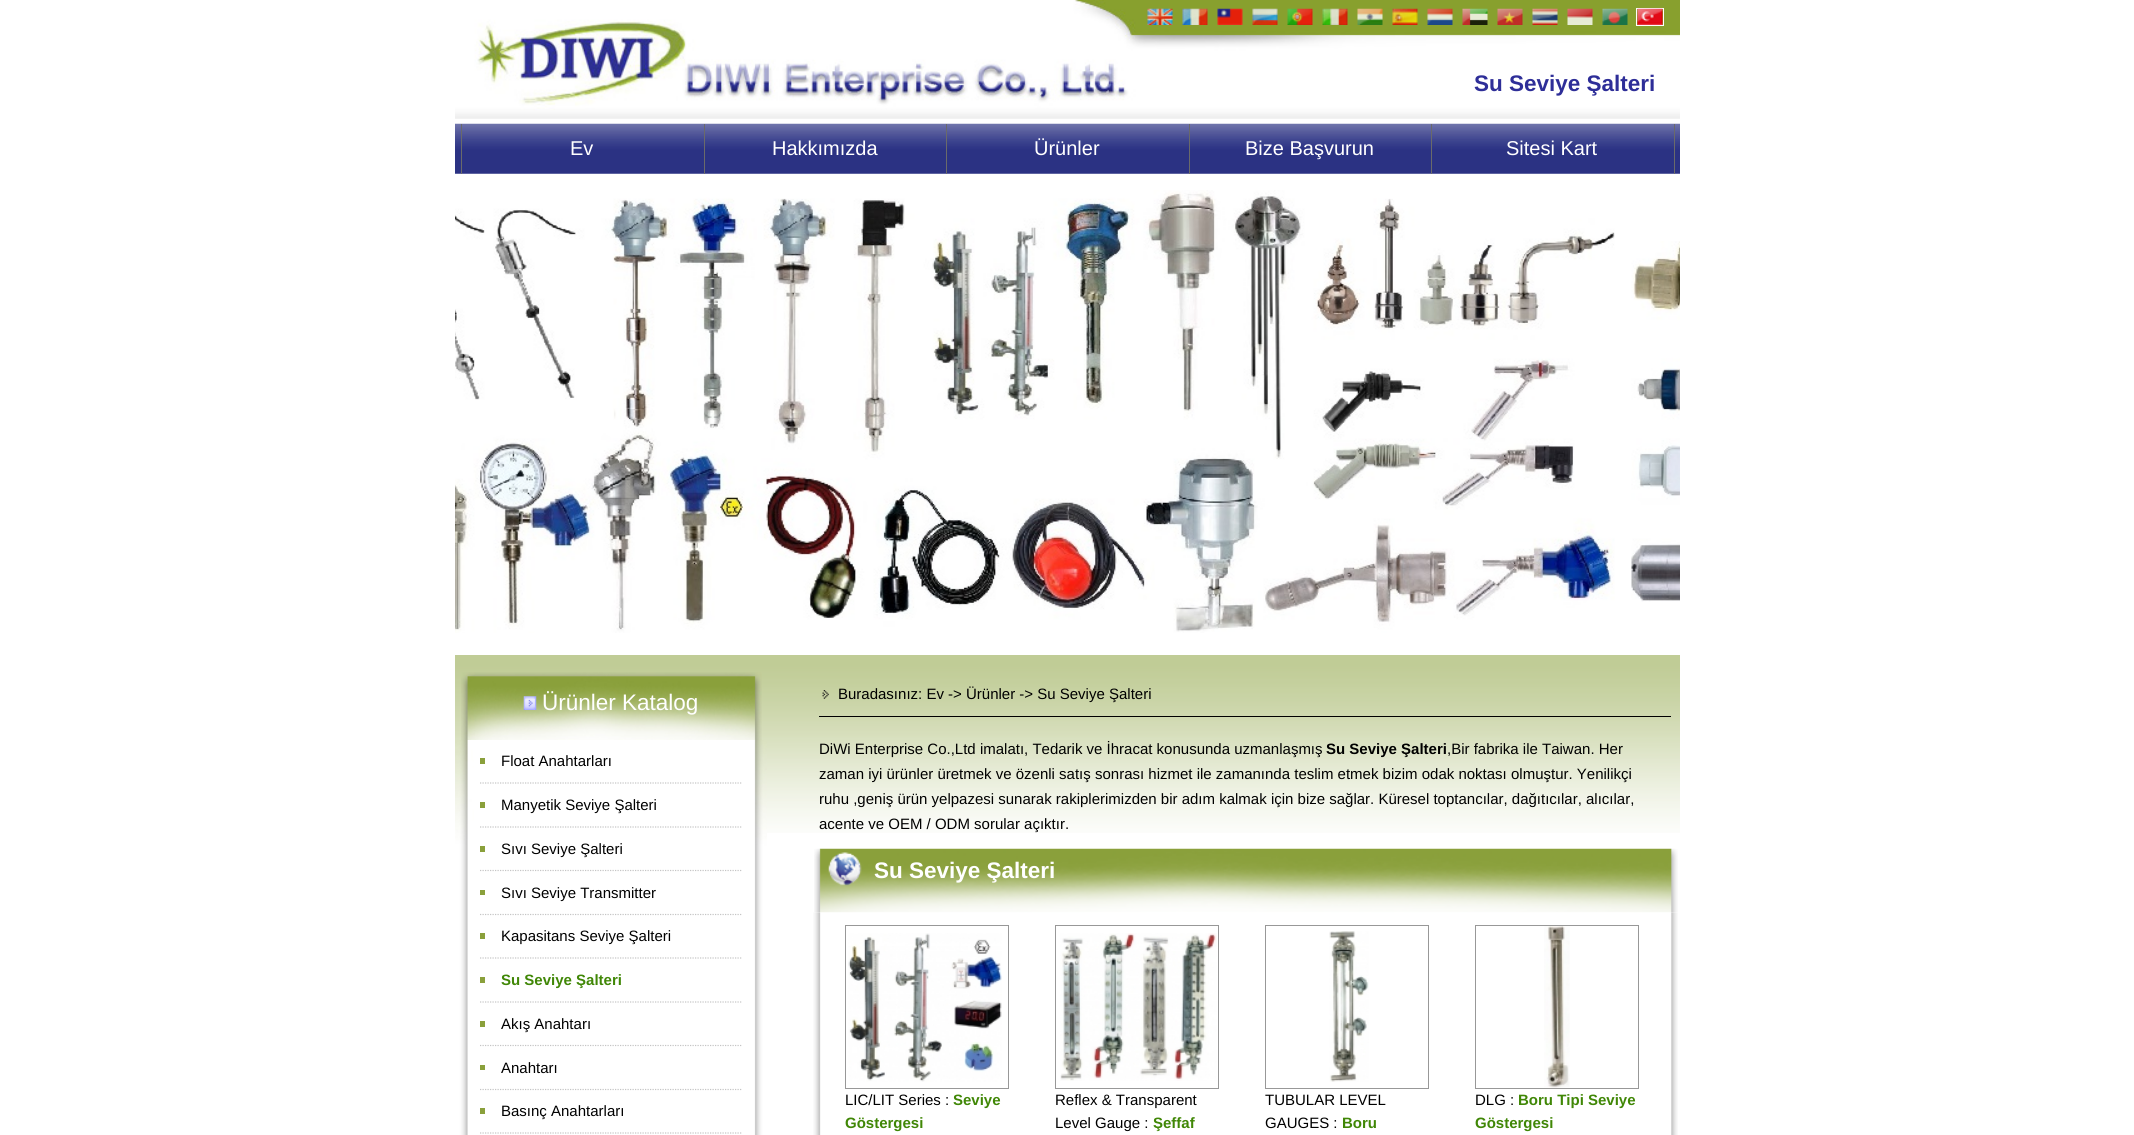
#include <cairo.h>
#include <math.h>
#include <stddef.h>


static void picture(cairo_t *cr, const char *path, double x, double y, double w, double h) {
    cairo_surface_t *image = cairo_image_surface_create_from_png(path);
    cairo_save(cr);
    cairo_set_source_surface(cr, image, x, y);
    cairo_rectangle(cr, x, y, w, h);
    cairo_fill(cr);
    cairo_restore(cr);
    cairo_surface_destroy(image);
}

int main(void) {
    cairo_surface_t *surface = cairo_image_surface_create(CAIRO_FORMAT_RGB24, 2134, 1135);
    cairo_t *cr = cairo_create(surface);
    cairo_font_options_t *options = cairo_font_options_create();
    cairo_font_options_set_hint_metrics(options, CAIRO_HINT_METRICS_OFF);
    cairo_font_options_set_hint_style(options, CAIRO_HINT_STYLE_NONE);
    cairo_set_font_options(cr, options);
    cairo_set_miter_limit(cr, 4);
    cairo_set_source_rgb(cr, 1, 1, 1);
    cairo_paint(cr);
    picture(cr, "img1.png", 455, 0, 1225, 119);
    picture(cr, "img2.png", 1147, 8, 26, 17);
    picture(cr, "img3.png", 1182, 8, 26, 17);
    picture(cr, "img4.png", 1217, 8, 26, 17);
    picture(cr, "img5.png", 1252, 8, 26, 17);
    picture(cr, "img6.png", 1287, 8, 26, 17);
    picture(cr, "img7.png", 1322, 8, 26, 17);
    picture(cr, "img8.png", 1357, 8, 26, 17);
    picture(cr, "img9.png", 1392, 8, 26, 17);
    picture(cr, "img10.png", 1427, 8, 26, 17);
    picture(cr, "img11.png", 1462, 8, 26, 17);
    picture(cr, "img12.png", 1497, 8, 26, 17);
    picture(cr, "img13.png", 1532, 8, 26, 17);
    picture(cr, "img14.png", 1567, 8, 26, 17);
    picture(cr, "img15.png", 1602, 8, 26, 17);
    cairo_rectangle(cr, 1636.5, 8.5, 27, 17);
    cairo_set_source_rgb(cr, 1, 1, 1);
    cairo_set_line_width(cr, 1);
    cairo_stroke(cr);
    picture(cr, "img16.png", 1637, 8, 26, 17);
    cairo_select_font_face(cr, "Liberation Sans", CAIRO_FONT_SLANT_NORMAL, CAIRO_FONT_WEIGHT_BOLD);
    cairo_set_font_size(cr, 22.5);
    cairo_set_source_rgb(cr, 0.18, 0.18, 0.596);
    cairo_move_to(cr, 1474, 91);
    cairo_show_text(cr, "Su Seviye Şalteri");
    picture(cr, "img17.png", 455, 123, 1225, 51);
    cairo_set_source_rgb(cr, 0.416, 0.416, 0.416);
    cairo_rectangle(cr, 461, 124, 1, 50);
    cairo_fill(cr);
    cairo_select_font_face(cr, "Liberation Sans", CAIRO_FONT_SLANT_NORMAL, CAIRO_FONT_WEIGHT_NORMAL);
    cairo_set_font_size(cr, 20);
    cairo_set_source_rgb(cr, 1, 1, 1);
    cairo_move_to(cr, 570, 155);
    cairo_show_text(cr, "Ev");
    cairo_set_source_rgb(cr, 0.416, 0.416, 0.416);
    cairo_rectangle(cr, 704, 124, 1, 50);
    cairo_fill(cr);
    cairo_set_source_rgb(cr, 1, 1, 1);
    cairo_move_to(cr, 772, 155);
    cairo_show_text(cr, "Hakkımızda");
    cairo_set_source_rgb(cr, 0.416, 0.416, 0.416);
    cairo_rectangle(cr, 946, 124, 1, 50);
    cairo_fill(cr);
    cairo_set_source_rgb(cr, 1, 1, 1);
    cairo_move_to(cr, 1034, 155);
    cairo_show_text(cr, "Ürünler");
    cairo_set_source_rgb(cr, 0.416, 0.416, 0.416);
    cairo_rectangle(cr, 1189, 124, 1, 50);
    cairo_fill(cr);
    cairo_set_source_rgb(cr, 1, 1, 1);
    cairo_move_to(cr, 1245, 155);
    cairo_show_text(cr, "Bize Başvurun");
    cairo_set_source_rgb(cr, 0.416, 0.416, 0.416);
    cairo_rectangle(cr, 1431, 124, 1, 50);
    cairo_fill(cr);
    cairo_set_source_rgb(cr, 1, 1, 1);
    cairo_move_to(cr, 1506, 155);
    cairo_show_text(cr, "Sitesi Kart");
    cairo_set_source_rgb(cr, 0.416, 0.416, 0.416);
    cairo_rectangle(cr, 1674, 124, 1, 50);
    cairo_fill(cr);
    picture(cr, "img18.png", 455, 190, 1160, 443);
    picture(cr, "img19.png", 1631, 241, 49, 361);
    picture(cr, "img20.png", 455, 655, 1225, 178);
    picture(cr, "img21.png", 461, 672, 301, 68);
    picture(cr, "img22.png", 523, 696, 14, 14);
    cairo_set_font_size(cr, 22.5);
    cairo_set_source_rgb(cr, 1, 1, 1);
    cairo_move_to(cr, 542, 710);
    cairo_show_text(cr, "Ürünler Katalog");
    picture(cr, "img23.png", 455, 740, 312, 395);
    cairo_set_source_rgb(cr, 0.541, 0.627, 0.231);
    cairo_rectangle(cr, 480, 758, 5, 6);
    cairo_fill(cr);
    cairo_new_path(cr);
    cairo_move_to(cr, 480, 783);
    cairo_line_to(cr, 742.5, 783);
    cairo_set_source_rgb(cr, 0.773, 0.773, 0.773);
    cairo_set_line_width(cr, 1.2);
    cairo_set_dash(cr, (double[]){1.25, 1.25}, 2, 0);
    cairo_stroke(cr);
    cairo_set_font_size(cr, 15);
    cairo_set_source_rgb(cr, 0, 0, 0);
    cairo_move_to(cr, 501, 766);
    cairo_show_text(cr, "Float Anahtarları");
    cairo_set_source_rgb(cr, 0.541, 0.627, 0.231);
    cairo_rectangle(cr, 480, 802, 5, 6);
    cairo_fill(cr);
    cairo_new_path(cr);
    cairo_move_to(cr, 480, 827);
    cairo_line_to(cr, 742.5, 827);
    cairo_set_source_rgb(cr, 0.773, 0.773, 0.773);
    cairo_stroke(cr);
    cairo_set_source_rgb(cr, 0, 0, 0);
    cairo_move_to(cr, 501, 810);
    cairo_show_text(cr, "Manyetik Seviye Şalteri");
    cairo_set_source_rgb(cr, 0.541, 0.627, 0.231);
    cairo_rectangle(cr, 480, 846, 5, 6);
    cairo_fill(cr);
    cairo_new_path(cr);
    cairo_move_to(cr, 480, 870.5);
    cairo_line_to(cr, 742.5, 870.5);
    cairo_set_source_rgb(cr, 0.773, 0.773, 0.773);
    cairo_stroke(cr);
    cairo_set_source_rgb(cr, 0, 0, 0);
    cairo_move_to(cr, 501, 854);
    cairo_show_text(cr, "Sıvı Seviye Şalteri");
    cairo_set_source_rgb(cr, 0.541, 0.627, 0.231);
    cairo_rectangle(cr, 480, 890, 5, 5);
    cairo_fill(cr);
    cairo_new_path(cr);
    cairo_move_to(cr, 480, 914.5);
    cairo_line_to(cr, 742.5, 914.5);
    cairo_set_source_rgb(cr, 0.773, 0.773, 0.773);
    cairo_stroke(cr);
    cairo_set_source_rgb(cr, 0, 0, 0);
    cairo_move_to(cr, 501, 898);
    cairo_show_text(cr, "Sıvı Seviye Transmitter");
    cairo_set_source_rgb(cr, 0.541, 0.627, 0.231);
    cairo_rectangle(cr, 480, 933, 5, 6);
    cairo_fill(cr);
    cairo_new_path(cr);
    cairo_move_to(cr, 480, 958);
    cairo_line_to(cr, 742.5, 958);
    cairo_set_source_rgb(cr, 0.773, 0.773, 0.773);
    cairo_stroke(cr);
    cairo_set_source_rgb(cr, 0, 0, 0);
    cairo_move_to(cr, 501, 941);
    cairo_show_text(cr, "Kapasitans Seviye Şalteri");
    cairo_set_source_rgb(cr, 0.541, 0.627, 0.231);
    cairo_rectangle(cr, 480, 977, 5, 6);
    cairo_fill(cr);
    cairo_new_path(cr);
    cairo_move_to(cr, 480, 1002);
    cairo_line_to(cr, 742.5, 1002);
    cairo_set_source_rgb(cr, 0.773, 0.773, 0.773);
    cairo_stroke(cr);
    cairo_select_font_face(cr, "Liberation Sans", CAIRO_FONT_SLANT_NORMAL, CAIRO_FONT_WEIGHT_BOLD);
    cairo_set_source_rgb(cr, 0.251, 0.529, 0.027);
    cairo_move_to(cr, 501, 985);
    cairo_show_text(cr, "Su Seviye Şalteri");
    cairo_set_source_rgb(cr, 0.541, 0.627, 0.231);
    cairo_rectangle(cr, 480, 1021, 5, 6);
    cairo_fill(cr);
    cairo_new_path(cr);
    cairo_move_to(cr, 480, 1045.5);
    cairo_line_to(cr, 742.5, 1045.5);
    cairo_set_source_rgb(cr, 0.773, 0.773, 0.773);
    cairo_stroke(cr);
    cairo_select_font_face(cr, "Liberation Sans", CAIRO_FONT_SLANT_NORMAL, CAIRO_FONT_WEIGHT_NORMAL);
    cairo_set_source_rgb(cr, 0, 0, 0);
    cairo_move_to(cr, 501, 1029);
    cairo_show_text(cr, "Akış Anahtarı");
    cairo_set_source_rgb(cr, 0.541, 0.627, 0.231);
    cairo_rectangle(cr, 480, 1065, 5, 5);
    cairo_fill(cr);
    cairo_new_path(cr);
    cairo_move_to(cr, 480, 1089.5);
    cairo_line_to(cr, 742.5, 1089.5);
    cairo_set_source_rgb(cr, 0.773, 0.773, 0.773);
    cairo_stroke(cr);
    cairo_set_source_rgb(cr, 0, 0, 0);
    cairo_move_to(cr, 501, 1073);
    cairo_show_text(cr, "Anahtarı");
    cairo_set_source_rgb(cr, 0.541, 0.627, 0.231);
    cairo_rectangle(cr, 480, 1108, 5, 6);
    cairo_fill(cr);
    cairo_new_path(cr);
    cairo_move_to(cr, 480, 1133);
    cairo_line_to(cr, 742.5, 1133);
    cairo_set_source_rgb(cr, 0.773, 0.773, 0.773);
    cairo_stroke(cr);
    cairo_set_source_rgb(cr, 0, 0, 0);
    cairo_move_to(cr, 501, 1116);
    cairo_show_text(cr, "Basınç Anahtarları");
    picture(cr, "img24.png", 822, 690, 7, 9);
    cairo_rectangle(cr, 819, 716, 852, 1);
    cairo_fill(cr);
    cairo_move_to(cr, 838, 699);
    cairo_show_text(cr, "Buradasınız: Ev -> Ürünler -> Su Seviye Şalteri");
    cairo_move_to(cr, 819, 754);
    cairo_show_text(cr, "DiWi Enterprise Co.,Ltd imalatı, Tedarik ve İhracat konusunda uzmanlaşmış");
    cairo_select_font_face(cr, "Liberation Sans", CAIRO_FONT_SLANT_NORMAL, CAIRO_FONT_WEIGHT_BOLD);
    cairo_move_to(cr, 1326, 754);
    cairo_show_text(cr, "Su Seviye Şalteri");
    cairo_select_font_face(cr, "Liberation Sans", CAIRO_FONT_SLANT_NORMAL, CAIRO_FONT_WEIGHT_NORMAL);
    cairo_move_to(cr, 1447, 754);
    cairo_show_text(cr, ",Bir fabrika ile Taiwan. Her");
    cairo_move_to(cr, 819, 779);
    cairo_show_text(cr, "zaman iyi ürünler üretmek ve özenli satış sonrası hizmet ile zamanında teslim etmek bizim odak noktası olmuştur. Yenilikçi");
    cairo_move_to(cr, 819, 804);
    cairo_show_text(cr, "ruhu ,geniş ürün yelpazesi sunarak rakiplerimizden bir adım kalmak için bize sağlar. Küresel toptancılar, dağıtıcılar, alıcılar,");
    cairo_move_to(cr, 819, 829);
    cairo_show_text(cr, "acente ve OEM / ODM sorular açıktır.");
    picture(cr, "img25.png", 814, 848, 864, 65);
    cairo_select_font_face(cr, "Liberation Sans", CAIRO_FONT_SLANT_NORMAL, CAIRO_FONT_WEIGHT_BOLD);
    cairo_set_font_size(cr, 22.5);
    cairo_set_source_rgb(cr, 1, 1, 1);
    cairo_move_to(cr, 874, 878);
    cairo_show_text(cr, "Su Seviye Şalteri");
    picture(cr, "img26.png", 813, 912, 865, 223);
    cairo_rectangle(cr, 845.5, 925.5, 163, 163);
    cairo_set_source_rgb(cr, 0.596, 0.596, 0.596);
    cairo_set_line_width(cr, 1);
    cairo_set_dash(cr, NULL, 0, 0);
    cairo_stroke(cr);
    picture(cr, "img27.png", 848, 933, 154, 149);
    cairo_select_font_face(cr, "Liberation Sans", CAIRO_FONT_SLANT_NORMAL, CAIRO_FONT_WEIGHT_NORMAL);
    cairo_set_font_size(cr, 15);
    cairo_set_source_rgb(cr, 0, 0, 0);
    cairo_move_to(cr, 845, 1105);
    cairo_show_text(cr, "LIC/LIT Series :");
    cairo_select_font_face(cr, "Liberation Sans", CAIRO_FONT_SLANT_NORMAL, CAIRO_FONT_WEIGHT_BOLD);
    cairo_set_source_rgb(cr, 0.251, 0.529, 0.027);
    cairo_move_to(cr, 953, 1105);
    cairo_show_text(cr, "Seviye");
    cairo_move_to(cr, 845, 1128);
    cairo_show_text(cr, "Göstergesi");
    cairo_rectangle(cr, 1055.5, 925.5, 163, 163);
    cairo_set_source_rgb(cr, 0.596, 0.596, 0.596);
    cairo_stroke(cr);
    picture(cr, "img28.png", 1060, 933, 157, 148);
    cairo_select_font_face(cr, "Liberation Sans", CAIRO_FONT_SLANT_NORMAL, CAIRO_FONT_WEIGHT_NORMAL);
    cairo_set_source_rgb(cr, 0, 0, 0);
    cairo_move_to(cr, 1055, 1105);
    cairo_show_text(cr, "Reflex & Transparent");
    cairo_move_to(cr, 1055, 1128);
    cairo_show_text(cr, "Level Gauge :");
    cairo_select_font_face(cr, "Liberation Sans", CAIRO_FONT_SLANT_NORMAL, CAIRO_FONT_WEIGHT_BOLD);
    cairo_set_source_rgb(cr, 0.251, 0.529, 0.027);
    cairo_move_to(cr, 1153, 1128);
    cairo_show_text(cr, "Şeffaf");
    cairo_rectangle(cr, 1265.5, 925.5, 163, 163);
    cairo_set_source_rgb(cr, 0.596, 0.596, 0.596);
    cairo_stroke(cr);
    picture(cr, "img29.png", 1329, 931, 40, 151);
    cairo_select_font_face(cr, "Liberation Sans", CAIRO_FONT_SLANT_NORMAL, CAIRO_FONT_WEIGHT_NORMAL);
    cairo_set_source_rgb(cr, 0, 0, 0);
    cairo_move_to(cr, 1265, 1105);
    cairo_show_text(cr, "TUBULAR LEVEL");
    cairo_move_to(cr, 1265, 1128);
    cairo_show_text(cr, "GAUGES :");
    cairo_select_font_face(cr, "Liberation Sans", CAIRO_FONT_SLANT_NORMAL, CAIRO_FONT_WEIGHT_BOLD);
    cairo_set_source_rgb(cr, 0.251, 0.529, 0.027);
    cairo_move_to(cr, 1342, 1128);
    cairo_show_text(cr, "Boru");
    cairo_rectangle(cr, 1475.5, 925.5, 163, 163);
    cairo_set_source_rgb(cr, 0.596, 0.596, 0.596);
    cairo_stroke(cr);
    picture(cr, "img30.png", 1544, 926, 26, 162);
    cairo_select_font_face(cr, "Liberation Sans", CAIRO_FONT_SLANT_NORMAL, CAIRO_FONT_WEIGHT_NORMAL);
    cairo_set_source_rgb(cr, 0, 0, 0);
    cairo_move_to(cr, 1475, 1105);
    cairo_show_text(cr, "DLG :");
    cairo_select_font_face(cr, "Liberation Sans", CAIRO_FONT_SLANT_NORMAL, CAIRO_FONT_WEIGHT_BOLD);
    cairo_set_source_rgb(cr, 0.251, 0.529, 0.027);
    cairo_move_to(cr, 1518, 1105);
    cairo_show_text(cr, "Boru Tipi Seviye");
    cairo_move_to(cr, 1475, 1128);
    cairo_show_text(cr, "Göstergesi");
    cairo_surface_write_to_png(surface, "page.png");
    cairo_font_options_destroy(options);
    cairo_destroy(cr);
    cairo_surface_destroy(surface);
    return 0;
}
